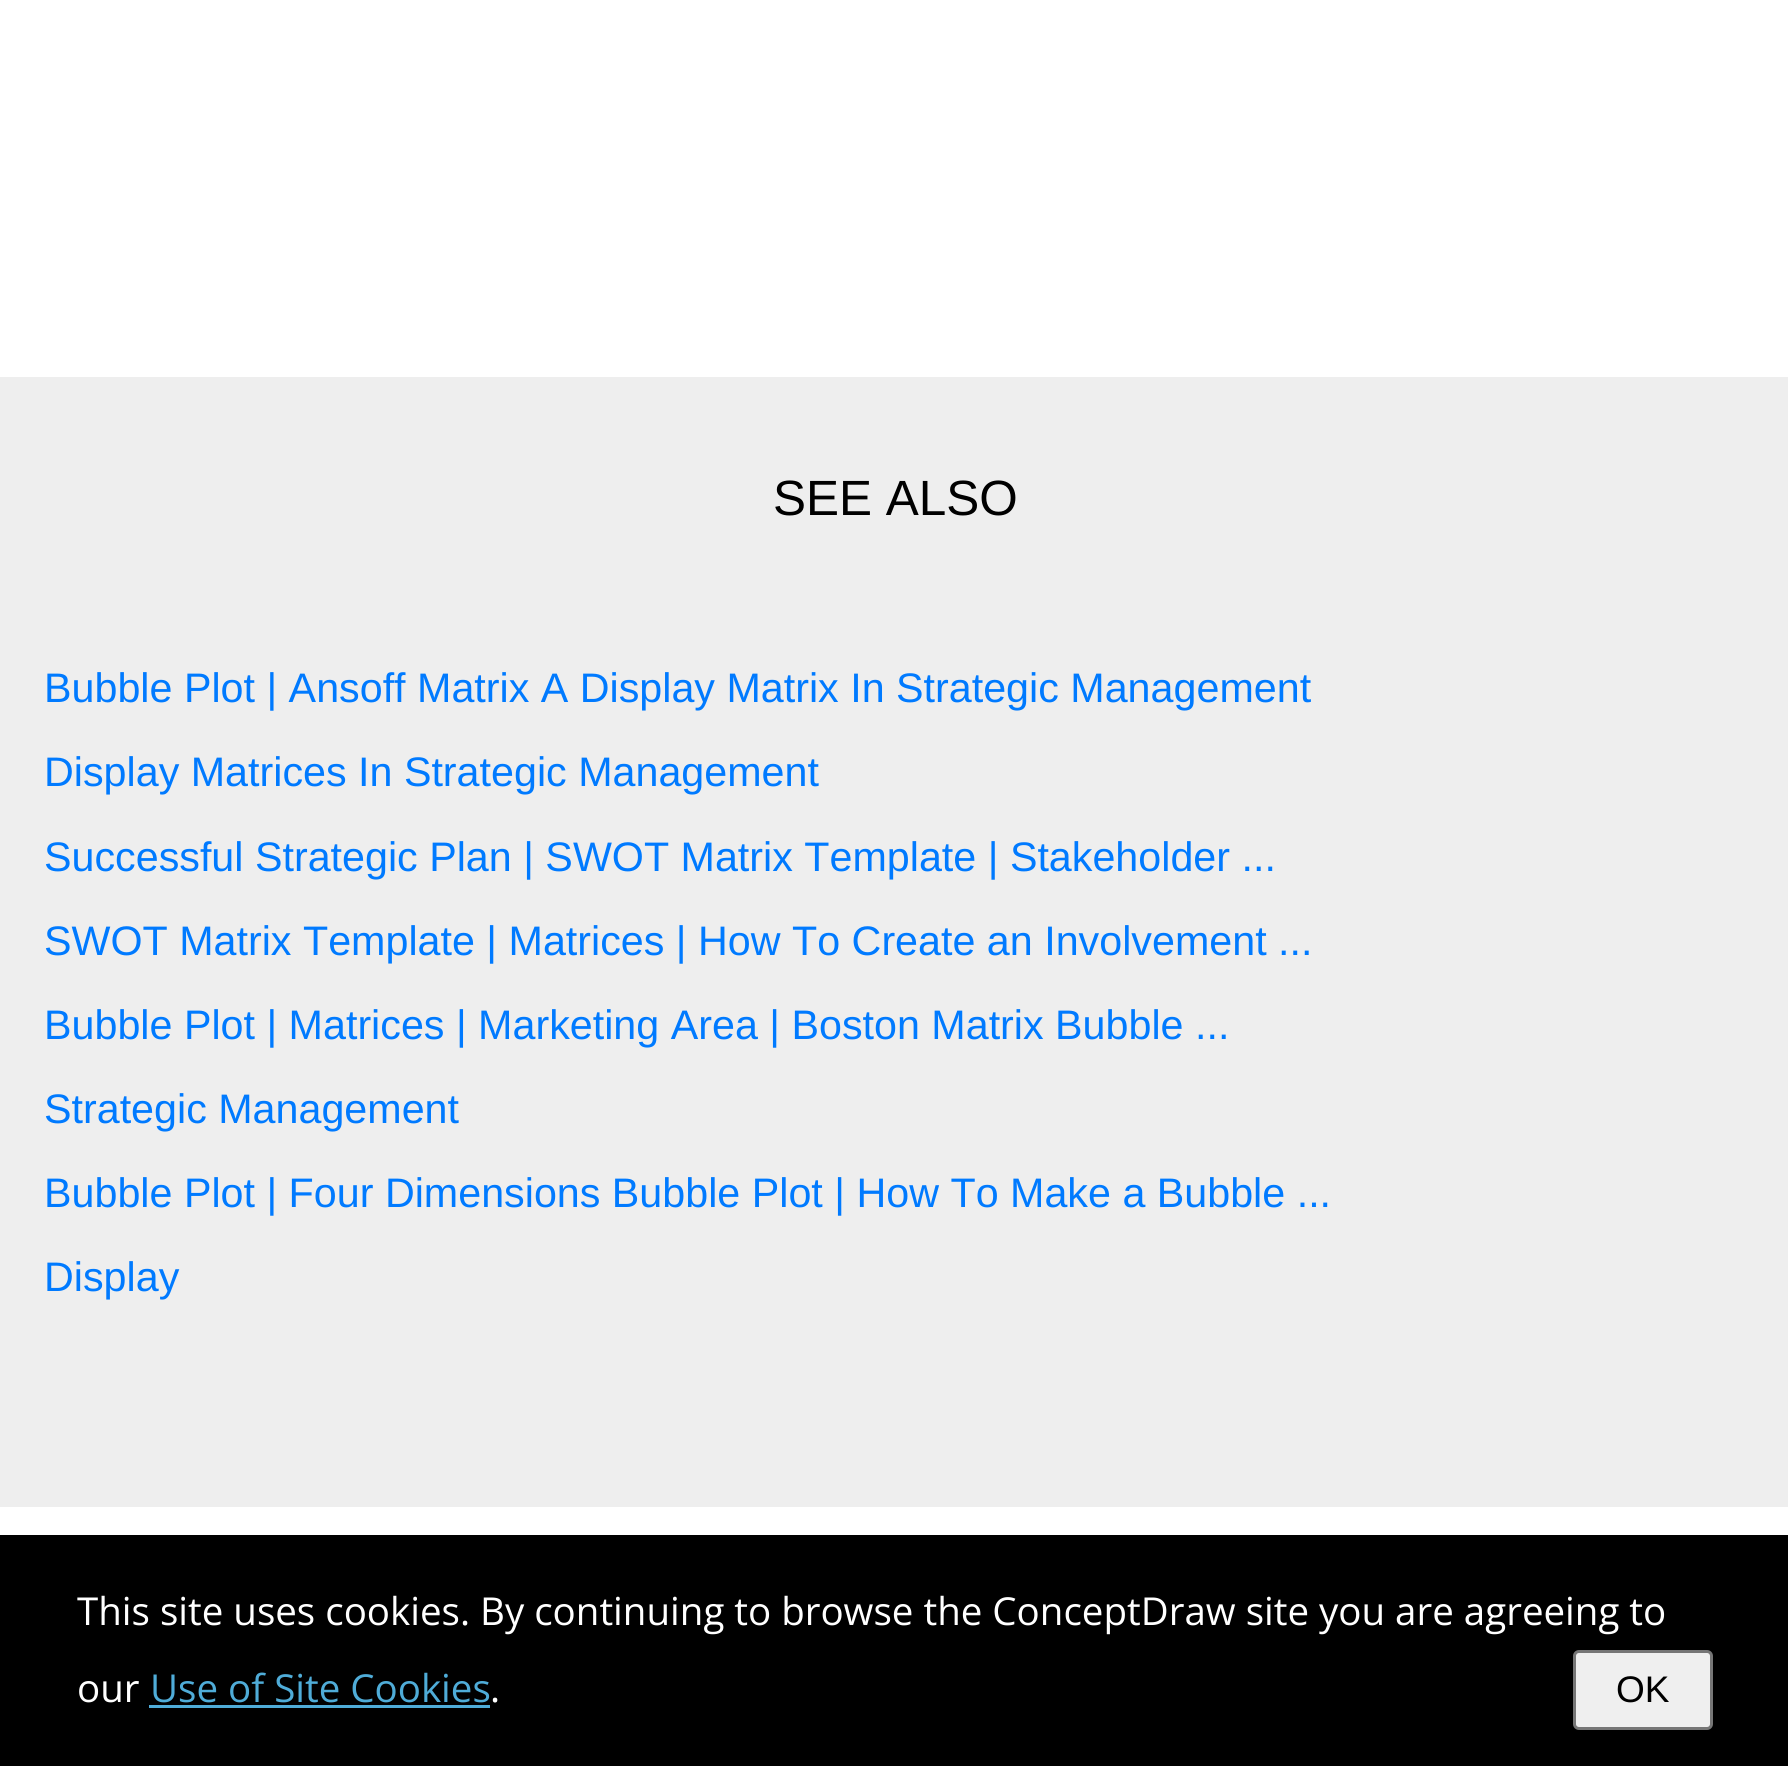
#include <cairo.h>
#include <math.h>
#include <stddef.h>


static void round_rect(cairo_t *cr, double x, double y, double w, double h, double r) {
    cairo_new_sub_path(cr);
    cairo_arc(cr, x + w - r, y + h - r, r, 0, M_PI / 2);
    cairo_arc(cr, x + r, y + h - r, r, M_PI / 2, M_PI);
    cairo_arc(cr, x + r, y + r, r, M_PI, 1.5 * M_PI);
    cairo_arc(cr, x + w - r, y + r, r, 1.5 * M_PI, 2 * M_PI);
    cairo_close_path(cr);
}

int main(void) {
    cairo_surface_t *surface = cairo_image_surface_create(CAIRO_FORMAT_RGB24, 1788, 1766);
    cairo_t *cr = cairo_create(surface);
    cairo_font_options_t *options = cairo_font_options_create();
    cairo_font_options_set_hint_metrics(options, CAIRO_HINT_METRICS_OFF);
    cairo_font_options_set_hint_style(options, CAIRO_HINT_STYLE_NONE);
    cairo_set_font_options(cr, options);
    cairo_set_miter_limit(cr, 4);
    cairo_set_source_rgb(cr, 1, 1, 1);
    cairo_paint(cr);
    cairo_set_source_rgb(cr, 0.933, 0.933, 0.933);
    cairo_rectangle(cr, 0, 377, 1788, 1130);
    cairo_fill(cr);
    cairo_select_font_face(cr, "Liberation Sans", CAIRO_FONT_SLANT_NORMAL, CAIRO_FONT_WEIGHT_NORMAL);
    cairo_set_font_size(cr, 49.5);
    cairo_set_source_rgb(cr, 0, 0, 0);
    cairo_move_to(cr, 773, 515);
    cairo_show_text(cr, "SEE ALSO");
    cairo_set_font_size(cr, 41.25);
    cairo_set_source_rgb(cr, 0, 0.478, 1);
    cairo_move_to(cr, 44, 702);
    cairo_show_text(cr, "Bubble Plot | Ansoff Matrix A Display Matrix In Strategic Management");
    cairo_move_to(cr, 44, 786);
    cairo_show_text(cr, "Display Matrices In Strategic Management");
    cairo_move_to(cr, 44, 871);
    cairo_show_text(cr, "Successful Strategic Plan | SWOT Matrix Template | Stakeholder ...");
    cairo_move_to(cr, 44, 955);
    cairo_show_text(cr, "SWOT Matrix Template | Matrices | How To Create an Involvement ...");
    cairo_move_to(cr, 44, 1039);
    cairo_show_text(cr, "Bubble Plot | Matrices | Marketing Area | Boston Matrix Bubble ...");
    cairo_move_to(cr, 44, 1123);
    cairo_show_text(cr, "Strategic Management");
    cairo_move_to(cr, 44, 1207);
    cairo_show_text(cr, "Bubble Plot | Four Dimensions Bubble Plot | How To Make a Bubble ...");
    cairo_move_to(cr, 44, 1291);
    cairo_show_text(cr, "Display");
    cairo_set_source_rgb(cr, 0, 0, 0);
    cairo_rectangle(cr, 0, 1535, 1788, 231);
    cairo_fill(cr);
    cairo_select_font_face(cr, "Open Sans", CAIRO_FONT_SLANT_NORMAL, CAIRO_FONT_WEIGHT_NORMAL);
    cairo_set_font_size(cr, 38.5);
    cairo_set_source_rgb(cr, 1, 1, 1);
    cairo_move_to(cr, 77, 1625);
    cairo_show_text(cr, "This site uses cookies. By continuing to browse the ConceptDraw site you are agreeing to");
    cairo_move_to(cr, 77, 1702);
    cairo_show_text(cr, "our");
    cairo_set_source_rgb(cr, 0.31, 0.675, 0.847);
    cairo_move_to(cr, 150, 1702);
    cairo_show_text(cr, "Use of Site Cookies");
    cairo_rectangle(cr, 149, 1705, 341, 3);
    cairo_fill(cr);
    cairo_set_source_rgb(cr, 1, 1, 1);
    cairo_move_to(cr, 490, 1702);
    cairo_show_text(cr, ".");
    cairo_set_source_rgb(cr, 0.937, 0.937, 0.937);
    round_rect(cr, 1574.5, 1651.5, 137, 77, 4.5);
    cairo_fill_preserve(cr);
    cairo_set_source_rgb(cr, 0.463, 0.463, 0.463);
    cairo_set_line_width(cr, 3);
    cairo_stroke(cr);
    cairo_select_font_face(cr, "Liberation Sans", CAIRO_FONT_SLANT_NORMAL, CAIRO_FONT_WEIGHT_NORMAL);
    cairo_set_font_size(cr, 37);
    cairo_set_source_rgb(cr, 0, 0, 0);
    cairo_move_to(cr, 1616, 1702);
    cairo_show_text(cr, "OK");
    cairo_surface_write_to_png(surface, "page.png");
    cairo_font_options_destroy(options);
    cairo_destroy(cr);
    cairo_surface_destroy(surface);
    return 0;
}
